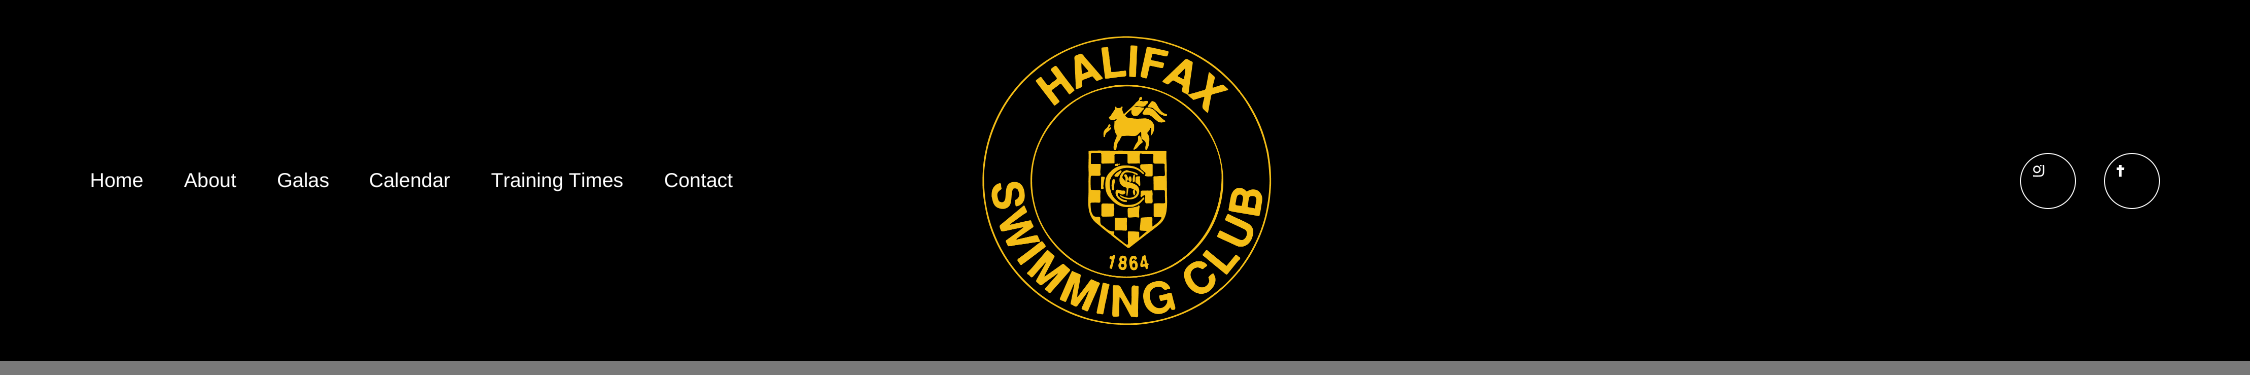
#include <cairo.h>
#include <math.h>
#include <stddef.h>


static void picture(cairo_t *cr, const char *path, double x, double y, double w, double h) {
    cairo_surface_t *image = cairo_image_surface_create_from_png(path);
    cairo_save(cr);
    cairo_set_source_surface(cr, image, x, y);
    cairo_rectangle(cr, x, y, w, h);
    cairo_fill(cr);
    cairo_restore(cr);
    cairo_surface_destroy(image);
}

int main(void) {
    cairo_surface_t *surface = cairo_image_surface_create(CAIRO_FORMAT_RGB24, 2250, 375);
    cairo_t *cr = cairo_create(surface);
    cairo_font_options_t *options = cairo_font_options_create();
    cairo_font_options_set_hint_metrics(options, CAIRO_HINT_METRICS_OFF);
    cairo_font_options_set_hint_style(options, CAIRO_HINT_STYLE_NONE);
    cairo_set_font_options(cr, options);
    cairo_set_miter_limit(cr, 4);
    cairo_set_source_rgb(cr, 0.475, 0.475, 0.475);
    cairo_paint(cr);
    cairo_set_source_rgb(cr, 0, 0, 0);
    cairo_rectangle(cr, 0, 0, 2250, 361);
    cairo_fill(cr);
    cairo_select_font_face(cr, "Arimo", CAIRO_FONT_SLANT_NORMAL, CAIRO_FONT_WEIGHT_NORMAL);
    cairo_set_font_size(cr, 20);
    cairo_set_source_rgb(cr, 1, 1, 1);
    cairo_move_to(cr, 90, 187);
    cairo_show_text(cr, "Home");
    cairo_move_to(cr, 184, 187);
    cairo_show_text(cr, "About");
    cairo_move_to(cr, 277, 187);
    cairo_show_text(cr, "Galas");
    cairo_move_to(cr, 369, 187);
    cairo_show_text(cr, "Calendar");
    cairo_move_to(cr, 491, 187);
    cairo_show_text(cr, "Training Times");
    cairo_move_to(cr, 664, 187);
    cairo_show_text(cr, "Contact");
    picture(cr, "img1.png", 982, 36, 290, 289);
    cairo_arc(cr, 2048, 181, 27.5, 0, 2 * M_PI);
    cairo_set_line_width(cr, 1);
    cairo_stroke(cr);
    picture(cr, "img2.png", 2033, 165, 12, 12);
    cairo_arc(cr, 2132, 181, 27.5, 0, 2 * M_PI);
    cairo_stroke(cr);
    picture(cr, "img3.png", 2116, 165, 9, 12);
    cairo_surface_write_to_png(surface, "page.png");
    cairo_font_options_destroy(options);
    cairo_destroy(cr);
    cairo_surface_destroy(surface);
    return 0;
}
